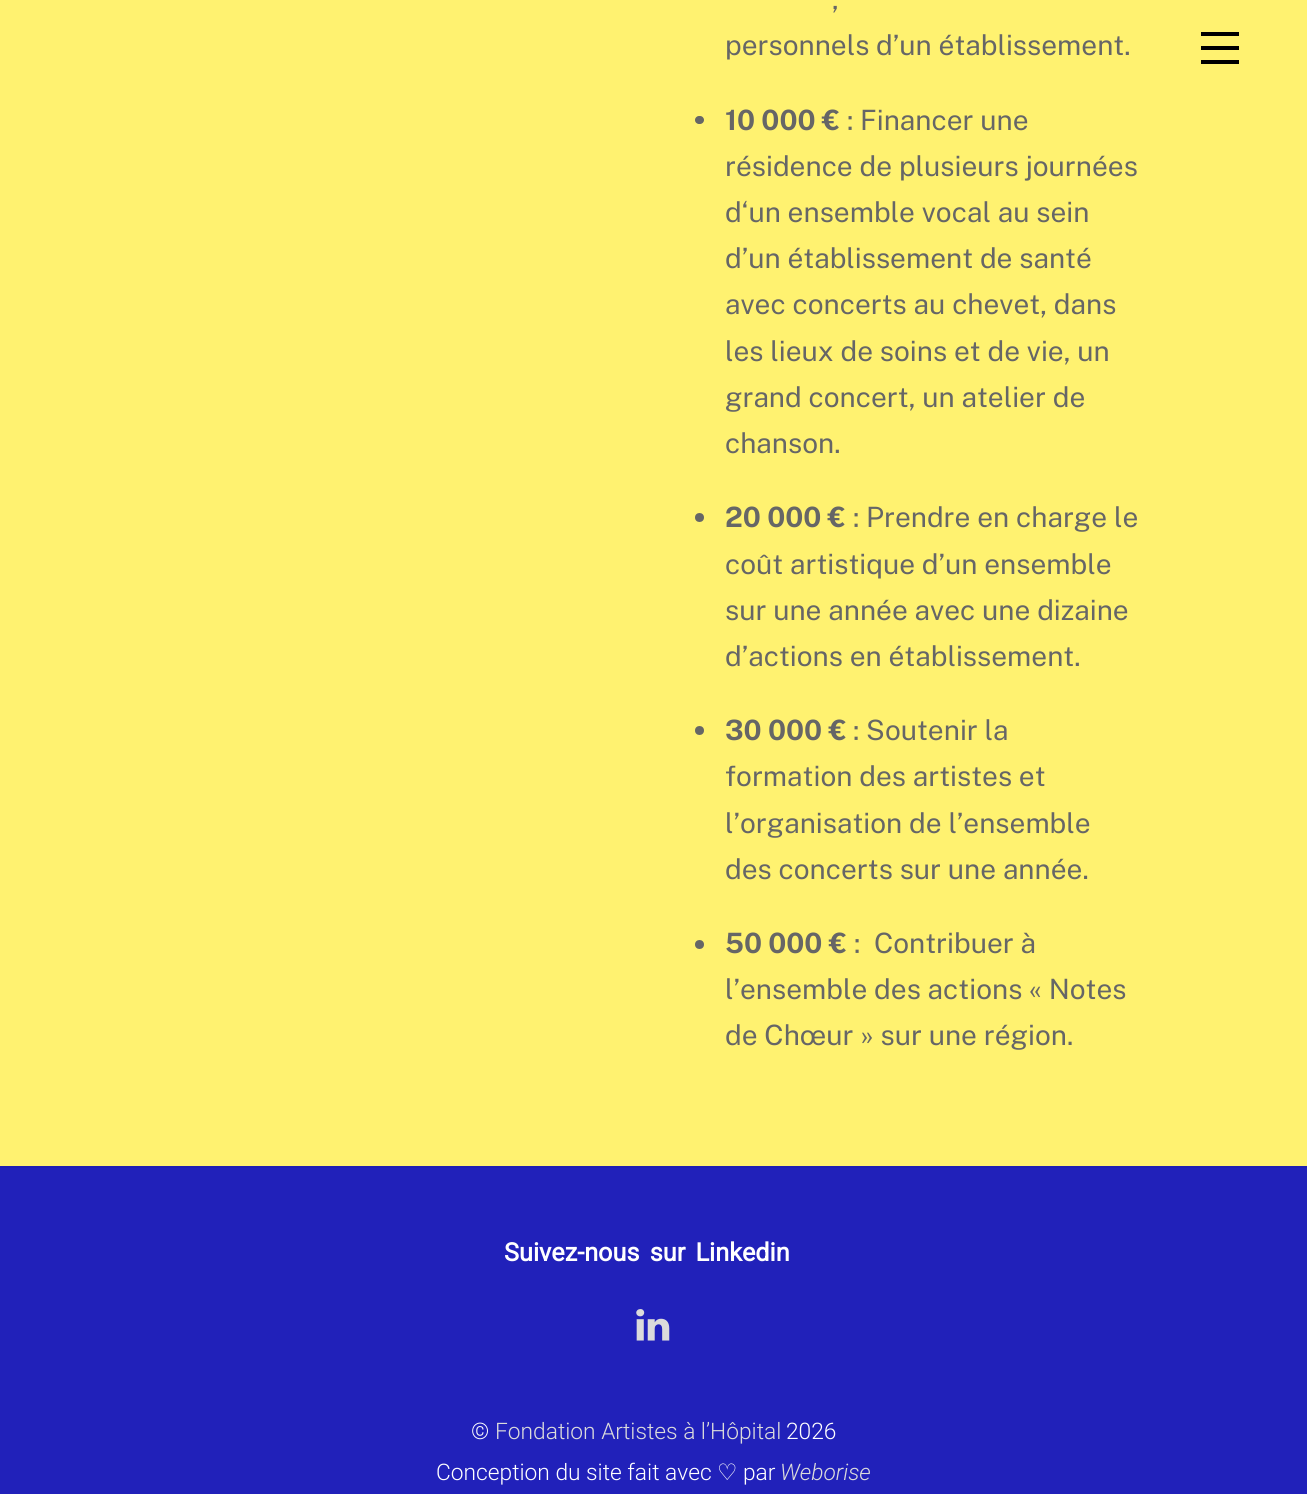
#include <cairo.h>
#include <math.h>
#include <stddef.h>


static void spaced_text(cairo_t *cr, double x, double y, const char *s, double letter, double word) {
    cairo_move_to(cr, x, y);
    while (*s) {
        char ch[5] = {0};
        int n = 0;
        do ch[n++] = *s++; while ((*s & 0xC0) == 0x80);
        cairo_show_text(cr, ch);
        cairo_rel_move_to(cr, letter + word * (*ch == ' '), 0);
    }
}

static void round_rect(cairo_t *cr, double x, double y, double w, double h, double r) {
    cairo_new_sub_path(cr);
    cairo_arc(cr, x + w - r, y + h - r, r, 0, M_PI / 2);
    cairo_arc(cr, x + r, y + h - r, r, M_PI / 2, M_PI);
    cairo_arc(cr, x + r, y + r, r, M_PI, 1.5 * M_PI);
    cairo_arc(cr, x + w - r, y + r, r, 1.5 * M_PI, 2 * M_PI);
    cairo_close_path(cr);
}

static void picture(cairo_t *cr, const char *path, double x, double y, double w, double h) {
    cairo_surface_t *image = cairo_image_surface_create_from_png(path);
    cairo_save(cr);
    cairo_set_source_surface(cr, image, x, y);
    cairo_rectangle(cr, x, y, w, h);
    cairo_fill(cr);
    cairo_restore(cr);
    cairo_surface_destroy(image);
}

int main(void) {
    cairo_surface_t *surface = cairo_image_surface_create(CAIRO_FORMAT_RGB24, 1307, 1494);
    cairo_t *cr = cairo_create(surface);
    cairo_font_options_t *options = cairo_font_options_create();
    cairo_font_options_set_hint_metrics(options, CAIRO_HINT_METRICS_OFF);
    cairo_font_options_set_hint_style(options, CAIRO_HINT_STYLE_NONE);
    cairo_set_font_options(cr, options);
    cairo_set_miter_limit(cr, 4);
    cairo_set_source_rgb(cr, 0.129, 0.129, 0.729);
    cairo_paint(cr);
    cairo_set_source_rgb(cr, 1, 0.949, 0.439);
    cairo_rectangle(cr, 0, 0, 1307, 1166);
    cairo_fill(cr);
    cairo_select_font_face(cr, "Public Sans", CAIRO_FONT_SLANT_NORMAL, CAIRO_FONT_WEIGHT_NORMAL);
    cairo_set_font_size(cr, 28);
    cairo_set_source_rgb(cr, 0.4, 0.4, 0.4);
    cairo_move_to(cr, 832, 9);
    cairo_show_text(cr, ",");
    cairo_move_to(cr, 725, 55);
    cairo_show_text(cr, "personnels d’un établissement.");
    round_rect(cr, 695, 116, 9, 8, 4);
    cairo_fill(cr);
    cairo_select_font_face(cr, "Public Sans", CAIRO_FONT_SLANT_NORMAL, CAIRO_FONT_WEIGHT_BOLD);
    cairo_move_to(cr, 725, 130);
    cairo_show_text(cr, "10 000 €");
    cairo_select_font_face(cr, "Public Sans", CAIRO_FONT_SLANT_NORMAL, CAIRO_FONT_WEIGHT_NORMAL);
    cairo_move_to(cr, 847, 130);
    cairo_show_text(cr, ": Financer une");
    cairo_move_to(cr, 725, 176);
    cairo_show_text(cr, "résidence de plusieurs journées");
    cairo_move_to(cr, 725, 222);
    cairo_show_text(cr, "d‘un ensemble vocal au sein");
    cairo_move_to(cr, 725, 268);
    cairo_show_text(cr, "d’un établissement de santé");
    cairo_move_to(cr, 725, 314);
    cairo_show_text(cr, "avec concerts au chevet, dans");
    cairo_move_to(cr, 725, 361);
    cairo_show_text(cr, "les lieux de soins et de vie, un");
    cairo_move_to(cr, 725, 407);
    cairo_show_text(cr, "grand concert, un atelier de");
    cairo_move_to(cr, 725, 453);
    cairo_show_text(cr, "chanson.");
    cairo_new_path(cr);
    cairo_arc(cr, 699.5, 517.5, 4.5, 0, 2 * M_PI);
    cairo_fill(cr);
    cairo_select_font_face(cr, "Public Sans", CAIRO_FONT_SLANT_NORMAL, CAIRO_FONT_WEIGHT_BOLD);
    cairo_move_to(cr, 725, 527);
    cairo_show_text(cr, "20 000 €");
    cairo_select_font_face(cr, "Public Sans", CAIRO_FONT_SLANT_NORMAL, CAIRO_FONT_WEIGHT_NORMAL);
    cairo_move_to(cr, 853, 527);
    cairo_show_text(cr, ": Prendre en charge le");
    cairo_move_to(cr, 725, 574);
    cairo_show_text(cr, "coût artistique d’un ensemble");
    cairo_move_to(cr, 725, 620);
    cairo_show_text(cr, "sur une année avec une dizaine");
    cairo_move_to(cr, 725, 666);
    cairo_show_text(cr, "d’actions en établissement.");
    cairo_new_path(cr);
    cairo_arc(cr, 699.5, 730.5, 4.5, 0, 2 * M_PI);
    cairo_fill(cr);
    cairo_select_font_face(cr, "Public Sans", CAIRO_FONT_SLANT_NORMAL, CAIRO_FONT_WEIGHT_BOLD);
    cairo_move_to(cr, 725, 740);
    cairo_show_text(cr, "30 000 €");
    cairo_select_font_face(cr, "Public Sans", CAIRO_FONT_SLANT_NORMAL, CAIRO_FONT_WEIGHT_NORMAL);
    cairo_move_to(cr, 853, 740);
    cairo_show_text(cr, ": Soutenir la");
    cairo_move_to(cr, 725, 786);
    cairo_show_text(cr, "formation des artistes et");
    cairo_move_to(cr, 725, 833);
    cairo_show_text(cr, "l’organisation de l’ensemble");
    cairo_move_to(cr, 725, 879);
    cairo_show_text(cr, "des concerts sur une année.");
    cairo_new_path(cr);
    cairo_arc(cr, 699.5, 944.5, 4.5, 0, 2 * M_PI);
    cairo_fill(cr);
    cairo_select_font_face(cr, "Public Sans", CAIRO_FONT_SLANT_NORMAL, CAIRO_FONT_WEIGHT_BOLD);
    cairo_move_to(cr, 725, 953);
    cairo_show_text(cr, "50 000 €");
    cairo_select_font_face(cr, "Public Sans", CAIRO_FONT_SLANT_NORMAL, CAIRO_FONT_WEIGHT_NORMAL);
    cairo_move_to(cr, 854, 953);
    cairo_show_text(cr, ":  Contribuer à");
    cairo_move_to(cr, 725, 999);
    cairo_show_text(cr, "l’ensemble des actions « Notes");
    cairo_move_to(cr, 725, 1045);
    cairo_show_text(cr, "de Chœur » sur une région.");
    cairo_set_source_rgb(cr, 0, 0, 0);
    cairo_rectangle(cr, 1201, 60, 38, 4);
    cairo_fill(cr);
    cairo_rectangle(cr, 1201, 32, 38, 4);
    cairo_fill(cr);
    cairo_rectangle(cr, 1201, 46, 38, 4);
    cairo_fill(cr);
    cairo_set_source_rgb(cr, 0.122, 0.122, 0.694);
    cairo_rectangle(cr, 0, 1166, 1307, 2);
    cairo_fill(cr);
    cairo_select_font_face(cr, "Roboto", CAIRO_FONT_SLANT_NORMAL, CAIRO_FONT_WEIGHT_BOLD);
    cairo_set_font_size(cr, 25.25);
    cairo_set_source_rgb(cr, 1, 1, 1);
    spaced_text(cr, 504, 1261, "Suivez-nous sur Linkedin", 0, 4);
    picture(cr, "img1.png", 636, 1309, 34, 32);
    cairo_select_font_face(cr, "Roboto Light", CAIRO_FONT_SLANT_NORMAL, CAIRO_FONT_WEIGHT_NORMAL);
    cairo_set_font_size(cr, 22.75);
    cairo_move_to(cr, 471, 1439);
    cairo_show_text(cr, "©");
    cairo_set_source_rgb(cr, 0.859, 0.859, 0.859);
    cairo_move_to(cr, 495, 1439);
    cairo_show_text(cr, "Fondation Artistes à l’Hôpital");
    cairo_set_source_rgb(cr, 1, 1, 1);
    cairo_move_to(cr, 786, 1439);
    cairo_show_text(cr, "2026");
    cairo_move_to(cr, 436, 1480);
    cairo_show_text(cr, "Conception du site fait avec");
    cairo_select_font_face(cr, "DejaVu Sans", CAIRO_FONT_SLANT_NORMAL, CAIRO_FONT_WEIGHT_NORMAL);
    cairo_move_to(cr, 717, 1480);
    cairo_show_text(cr, "♡");
    cairo_select_font_face(cr, "Roboto Light", CAIRO_FONT_SLANT_NORMAL, CAIRO_FONT_WEIGHT_NORMAL);
    cairo_move_to(cr, 743, 1480);
    cairo_show_text(cr, "par");
    cairo_select_font_face(cr, "Roboto Light", CAIRO_FONT_SLANT_ITALIC, CAIRO_FONT_WEIGHT_NORMAL);
    cairo_set_source_rgb(cr, 0.859, 0.859, 0.859);
    cairo_move_to(cr, 780, 1480);
    cairo_show_text(cr, "Weborise");
    cairo_surface_write_to_png(surface, "page.png");
    cairo_font_options_destroy(options);
    cairo_destroy(cr);
    cairo_surface_destroy(surface);
    return 0;
}
